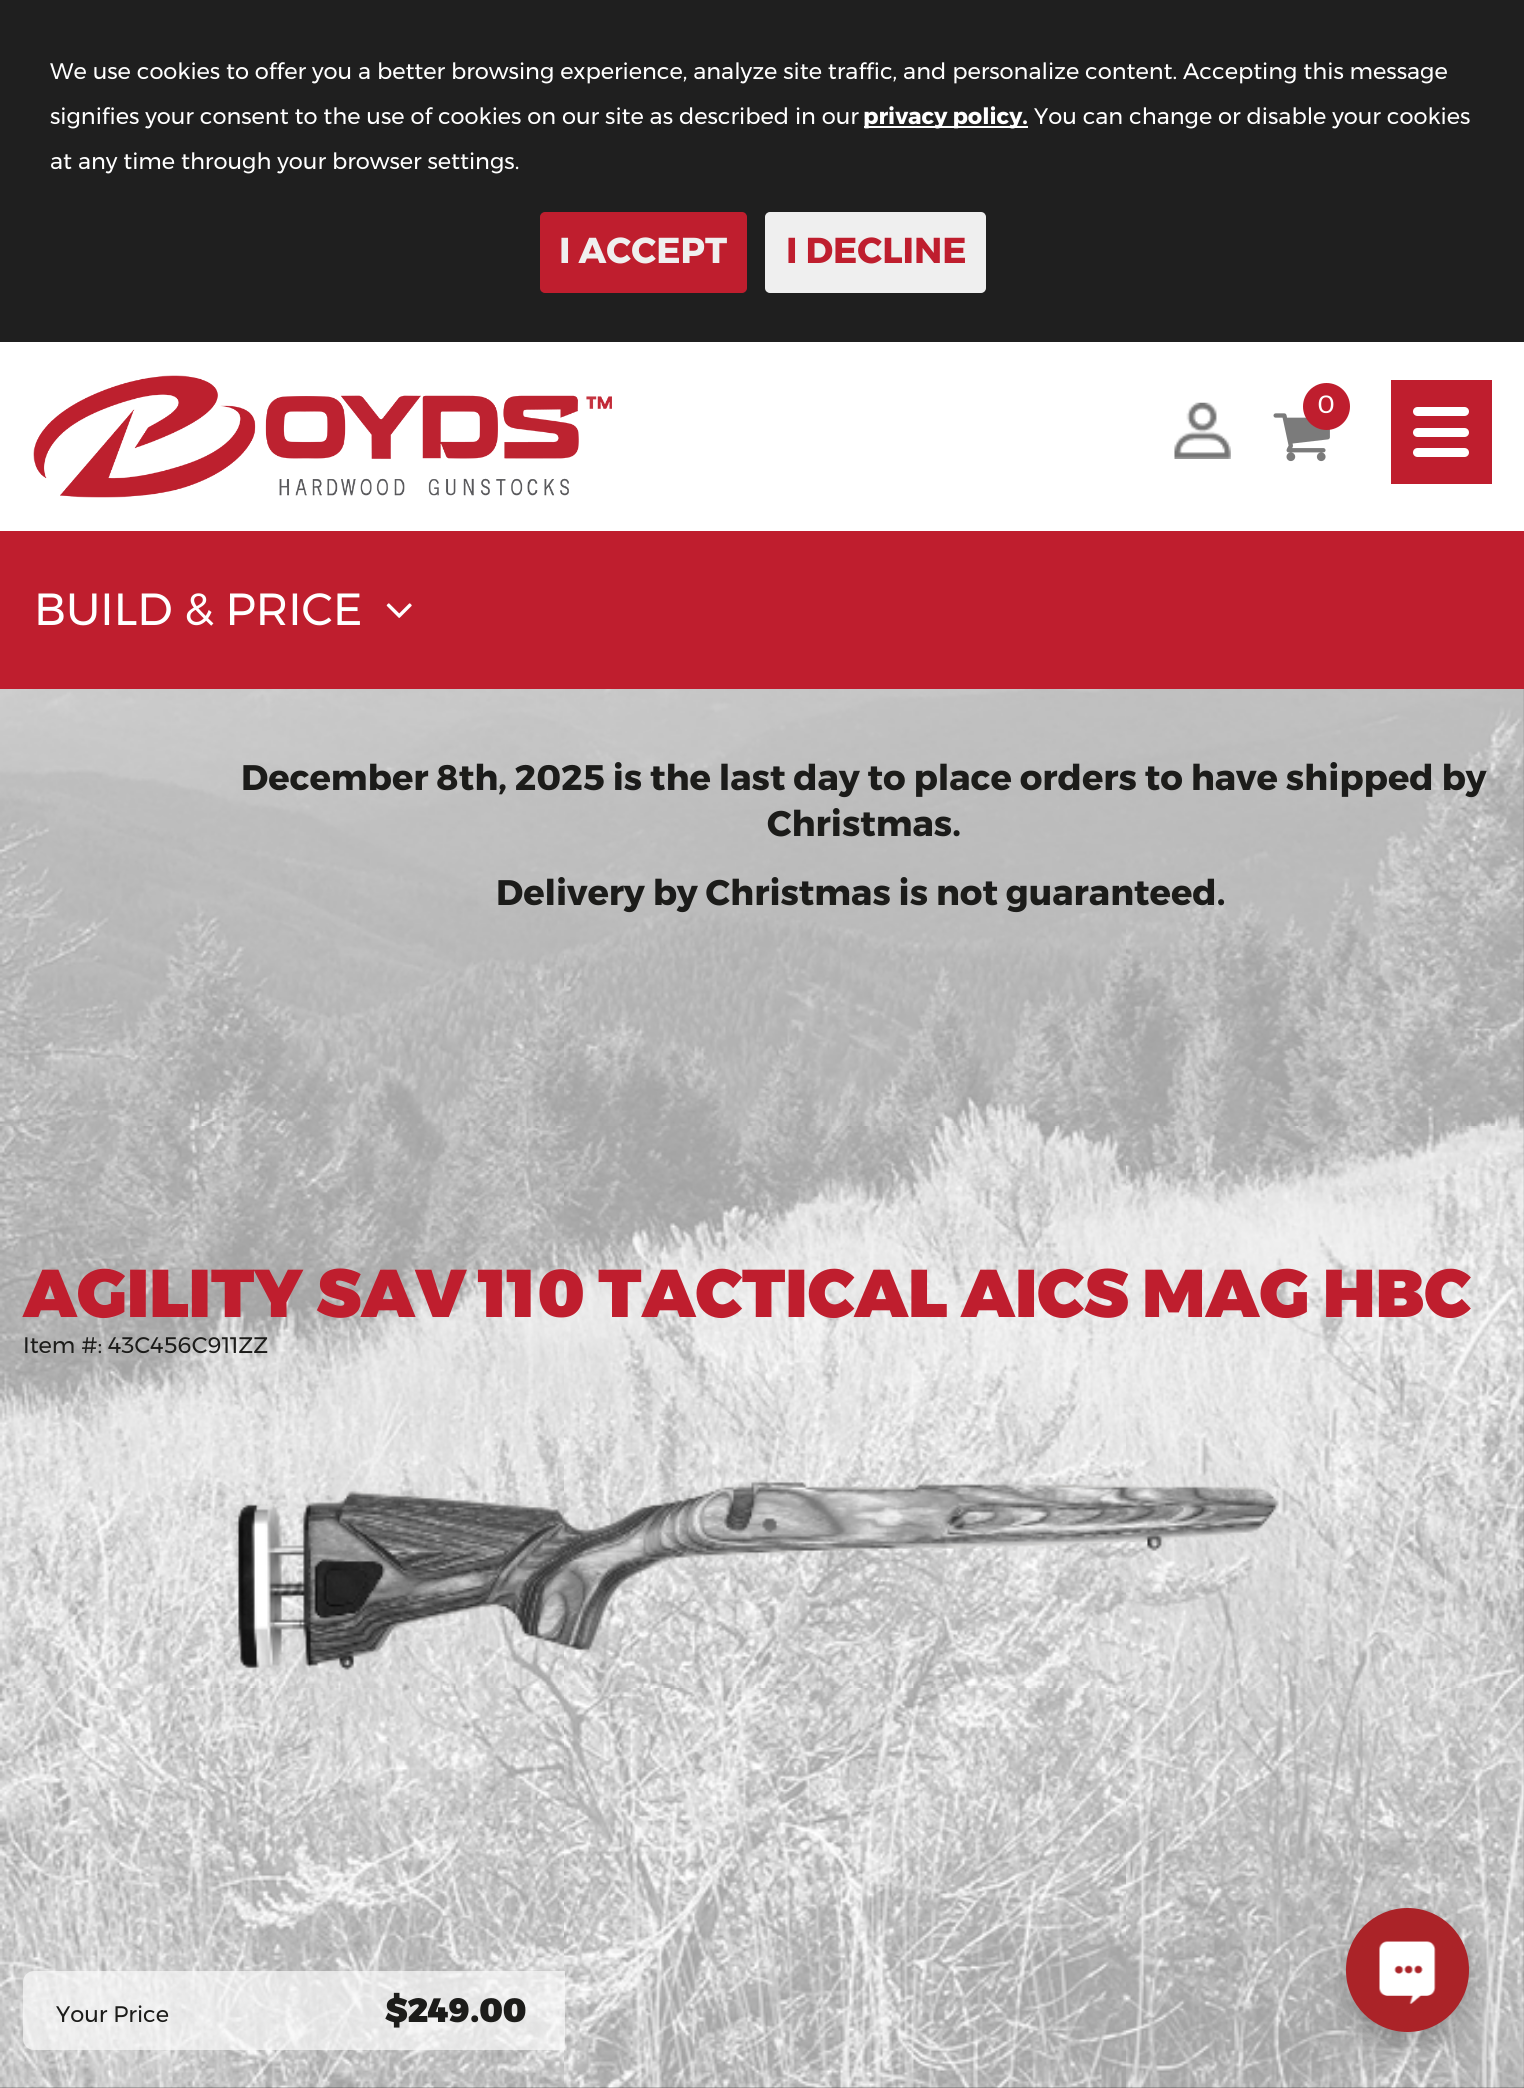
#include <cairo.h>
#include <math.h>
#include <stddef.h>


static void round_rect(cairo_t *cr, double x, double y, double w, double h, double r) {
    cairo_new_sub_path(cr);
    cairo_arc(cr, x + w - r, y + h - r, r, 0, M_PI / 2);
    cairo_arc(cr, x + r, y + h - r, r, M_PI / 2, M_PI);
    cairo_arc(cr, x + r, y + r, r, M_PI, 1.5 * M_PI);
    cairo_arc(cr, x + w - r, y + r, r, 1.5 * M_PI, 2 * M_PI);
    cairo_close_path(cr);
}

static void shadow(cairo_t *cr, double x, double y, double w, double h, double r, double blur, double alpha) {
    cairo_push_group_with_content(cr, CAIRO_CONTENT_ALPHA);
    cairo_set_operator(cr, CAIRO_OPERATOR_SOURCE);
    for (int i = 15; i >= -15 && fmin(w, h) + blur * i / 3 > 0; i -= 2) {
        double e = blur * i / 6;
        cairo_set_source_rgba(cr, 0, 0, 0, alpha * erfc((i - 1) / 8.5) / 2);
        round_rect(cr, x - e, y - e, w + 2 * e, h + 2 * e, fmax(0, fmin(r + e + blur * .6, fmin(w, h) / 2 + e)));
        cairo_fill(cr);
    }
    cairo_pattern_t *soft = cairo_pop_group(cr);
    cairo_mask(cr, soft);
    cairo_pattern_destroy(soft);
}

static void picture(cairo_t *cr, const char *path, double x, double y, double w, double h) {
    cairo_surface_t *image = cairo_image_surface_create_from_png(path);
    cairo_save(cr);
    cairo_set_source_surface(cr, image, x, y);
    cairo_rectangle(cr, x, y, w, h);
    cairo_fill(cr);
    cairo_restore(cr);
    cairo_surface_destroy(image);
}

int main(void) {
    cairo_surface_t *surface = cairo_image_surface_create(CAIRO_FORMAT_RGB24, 1524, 2088);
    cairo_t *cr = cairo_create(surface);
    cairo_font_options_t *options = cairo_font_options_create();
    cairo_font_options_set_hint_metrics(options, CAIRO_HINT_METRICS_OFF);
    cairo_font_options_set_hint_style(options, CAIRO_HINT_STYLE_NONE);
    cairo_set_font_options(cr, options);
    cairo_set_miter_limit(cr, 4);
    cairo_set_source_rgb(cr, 0.122, 0.122, 0.122);
    cairo_paint(cr);
    picture(cr, "img1.png", 0, 689, 1524, 1399);
    cairo_select_font_face(cr, "Montserrat", CAIRO_FONT_SLANT_NORMAL, CAIRO_FONT_WEIGHT_NORMAL);
    cairo_set_font_size(cr, 22.5);
    cairo_set_source_rgb(cr, 1, 1, 1);
    cairo_move_to(cr, 50, 79);
    cairo_show_text(cr, "We use cookies to offer you a better browsing experience, analyze site traffic, and personalize content. Accepting this message");
    cairo_move_to(cr, 50, 124);
    cairo_show_text(cr, "signifies your consent to the use of cookies on our site as described in our");
    cairo_rectangle(cr, 864, 126, 164, 2);
    cairo_fill(cr);
    cairo_select_font_face(cr, "Montserrat", CAIRO_FONT_SLANT_NORMAL, CAIRO_FONT_WEIGHT_BOLD);
    cairo_move_to(cr, 863, 124);
    cairo_show_text(cr, "privacy policy.");
    cairo_select_font_face(cr, "Montserrat", CAIRO_FONT_SLANT_NORMAL, CAIRO_FONT_WEIGHT_NORMAL);
    cairo_move_to(cr, 1034, 124);
    cairo_show_text(cr, "You can change or disable your cookies");
    cairo_move_to(cr, 50, 169);
    cairo_show_text(cr, "at any time through your browser settings.");
    cairo_set_source_rgb(cr, 0.749, 0.118, 0.18);
    round_rect(cr, 541, 213, 205, 79, 4);
    cairo_fill_preserve(cr);
    cairo_stroke(cr);
    cairo_select_font_face(cr, "Montserrat", CAIRO_FONT_SLANT_NORMAL, CAIRO_FONT_WEIGHT_BOLD);
    cairo_set_font_size(cr, 36);
    cairo_set_source_rgb(cr, 0.937, 0.937, 0.937);
    cairo_move_to(cr, 559, 263);
    cairo_show_text(cr, "I ACCEPT");
    round_rect(cr, 766, 213, 219, 79, 4);
    cairo_fill_preserve(cr);
    cairo_stroke(cr);
    cairo_set_source_rgb(cr, 0.749, 0.118, 0.18);
    cairo_move_to(cr, 786, 263);
    cairo_show_text(cr, "I DECLINE");
    cairo_set_source_rgb(cr, 1, 1, 1);
    cairo_rectangle(cr, 0, 342, 1524, 189);
    cairo_fill(cr);
    picture(cr, "img2.png", 33, 375, 579, 123);
    cairo_set_source_rgb(cr, 0.749, 0.118, 0.18);
    cairo_rectangle(cr, 1391, 380, 101, 104);
    cairo_fill(cr);
    cairo_set_source_rgb(cr, 1, 1, 1);
    round_rect(cr, 1413, 407, 56, 9, 4.5);
    cairo_fill(cr);
    round_rect(cr, 1413, 428, 56, 9, 4.5);
    cairo_fill(cr);
    round_rect(cr, 1413, 448, 56, 9, 4.5);
    cairo_fill(cr);
    picture(cr, "img3.png", 1174, 402, 57, 57);
    picture(cr, "img4.png", 1273, 413, 57, 49);
    cairo_set_source_rgb(cr, 0.749, 0.118, 0.18);
    cairo_arc(cr, 1326.5, 406.5, 23.5, 0, 2 * M_PI);
    cairo_fill(cr);
    cairo_select_font_face(cr, "Montserrat", CAIRO_FONT_SLANT_NORMAL, CAIRO_FONT_WEIGHT_NORMAL);
    cairo_set_font_size(cr, 25);
    cairo_set_source_rgb(cr, 1, 1, 1);
    cairo_move_to(cr, 1317, 413);
    cairo_show_text(cr, "0");
    cairo_set_source_rgb(cr, 0.749, 0.118, 0.18);
    cairo_rectangle(cr, 0, 531, 1524, 158);
    cairo_fill(cr);
    cairo_set_font_size(cr, 45);
    cairo_set_source_rgb(cr, 1, 1, 1);
    cairo_move_to(cr, 34, 625);
    cairo_show_text(cr, "BUILD & PRICE");
    picture(cr, "img5.png", 386, 603, 26, 15);
    cairo_select_font_face(cr, "Montserrat", CAIRO_FONT_SLANT_NORMAL, CAIRO_FONT_WEIGHT_BOLD);
    cairo_set_font_size(cr, 35.45);
    cairo_set_source_rgb(cr, 0.11, 0.11, 0.102);
    cairo_move_to(cr, 241, 790);
    cairo_show_text(cr, "December 8th, 2025 is the last day to place orders to have shipped by");
    cairo_move_to(cr, 767, 836);
    cairo_show_text(cr, "Christmas.");
    cairo_move_to(cr, 496, 905);
    cairo_show_text(cr, "Delivery by Christmas is not guaranteed.");
    cairo_select_font_face(cr, "Montserrat Black", CAIRO_FONT_SLANT_NORMAL, CAIRO_FONT_WEIGHT_NORMAL);
    cairo_set_font_size(cr, 67.5);
    cairo_set_source_rgb(cr, 0.749, 0.118, 0.18);
    cairo_move_to(cr, 23, 1317);
    cairo_show_text(cr, "AGILITY SAV 110 TACTICAL AICS MAG HBC");
    cairo_select_font_face(cr, "Montserrat", CAIRO_FONT_SLANT_NORMAL, CAIRO_FONT_WEIGHT_NORMAL);
    cairo_set_font_size(cr, 22.5);
    cairo_set_source_rgb(cr, 0.11, 0.11, 0.102);
    cairo_move_to(cr, 23, 1353);
    cairo_show_text(cr, "Item #: 43C456C911ZZ");
    picture(cr, "img6.png", 236, 1480, 1043, 191);
    cairo_set_source_rgba(cr, 0.98, 0.98, 0.98, 0.7);
    cairo_new_path(cr);
    cairo_move_to(cr, 34, 1971);
    cairo_line_to(cr, 565, 1971);
    cairo_line_to(cr, 565, 2050);
    cairo_line_to(cr, 34, 2050);
    cairo_curve_to(cr, 28, 2050, 23, 2045, 23, 2039);
    cairo_line_to(cr, 23, 1982);
    cairo_curve_to(cr, 23, 1976, 28, 1971, 34, 1971);
    cairo_close_path(cr);
    cairo_fill(cr);
    cairo_set_source_rgb(cr, 0.11, 0.11, 0.102);
    cairo_move_to(cr, 56, 2022);
    cairo_show_text(cr, "Your Price");
    cairo_select_font_face(cr, "Montserrat Black", CAIRO_FONT_SLANT_NORMAL, CAIRO_FONT_WEIGHT_NORMAL);
    cairo_set_font_size(cr, 33.75);
    cairo_move_to(cr, 385, 2022);
    cairo_show_text(cr, "$249.00");
    cairo_set_source_rgb(cr, 0, 0, 0);
    shadow(cr, 1346, 1922, 123, 123, 61.5, 13.5, 0.2);
    cairo_set_source_rgb(cr, 0.671, 0.137, 0.157);
    round_rect(cr, 1346, 1908, 123, 124, 61.5);
    cairo_fill(cr);
    picture(cr, "img7.png", 1379, 1941, 57, 63);
    cairo_surface_write_to_png(surface, "page.png");
    cairo_font_options_destroy(options);
    cairo_destroy(cr);
    cairo_surface_destroy(surface);
    return 0;
}
